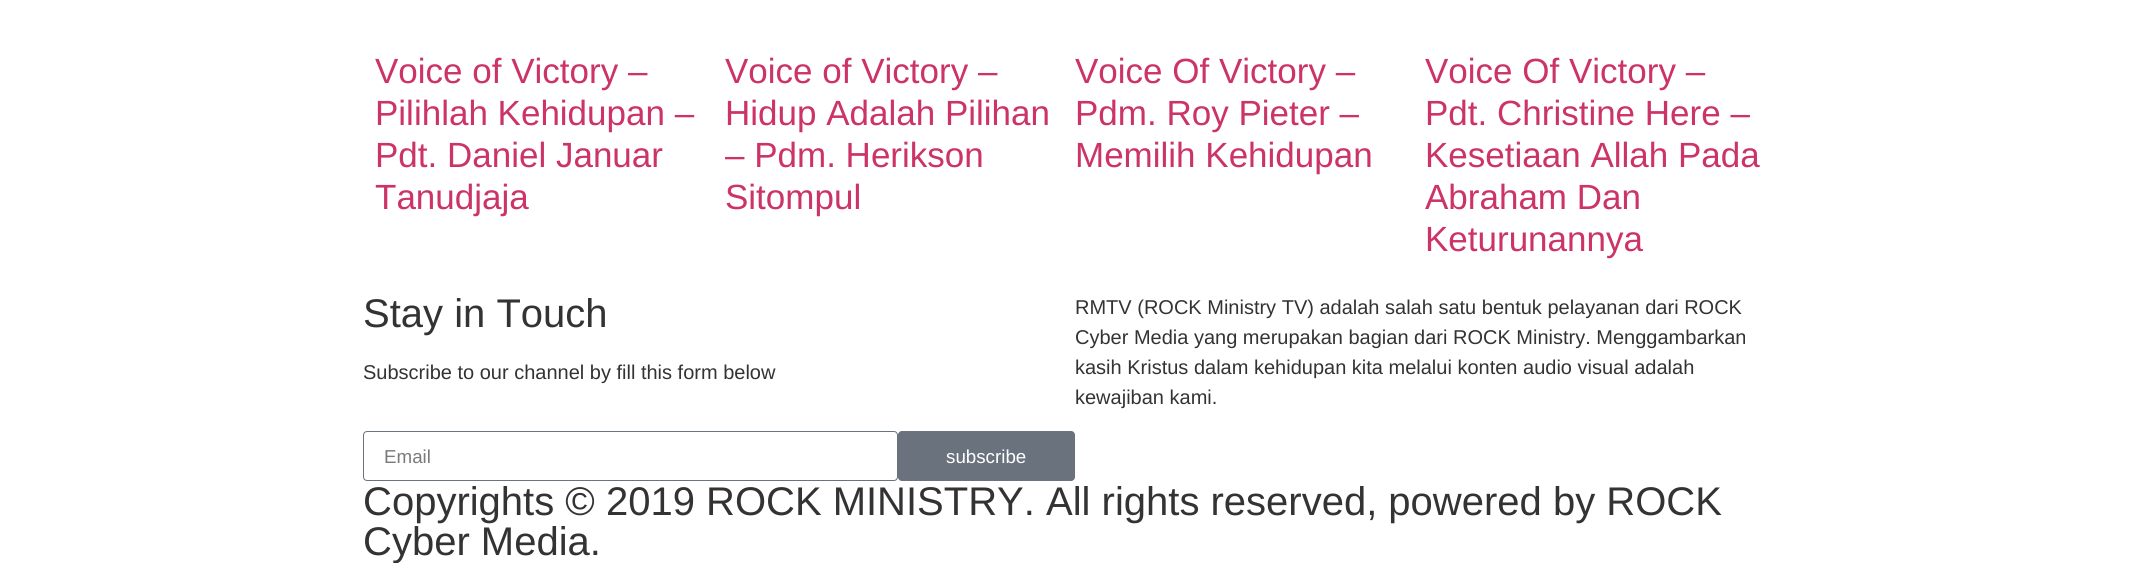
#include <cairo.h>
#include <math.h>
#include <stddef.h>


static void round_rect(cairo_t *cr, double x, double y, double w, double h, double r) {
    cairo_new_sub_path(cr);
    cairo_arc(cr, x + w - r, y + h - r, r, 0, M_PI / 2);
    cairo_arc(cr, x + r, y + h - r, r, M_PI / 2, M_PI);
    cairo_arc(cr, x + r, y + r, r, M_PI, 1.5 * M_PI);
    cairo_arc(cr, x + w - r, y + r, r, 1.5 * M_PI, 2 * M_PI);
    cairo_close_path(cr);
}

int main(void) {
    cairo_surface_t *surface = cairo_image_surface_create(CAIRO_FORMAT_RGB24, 2150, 563);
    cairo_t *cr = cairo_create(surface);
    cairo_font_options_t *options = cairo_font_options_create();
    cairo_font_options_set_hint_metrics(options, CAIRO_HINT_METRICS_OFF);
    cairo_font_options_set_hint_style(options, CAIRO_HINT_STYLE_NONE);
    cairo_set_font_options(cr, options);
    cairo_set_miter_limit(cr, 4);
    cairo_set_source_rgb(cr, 1, 1, 1);
    cairo_paint(cr);
    cairo_select_font_face(cr, "Liberation Sans", CAIRO_FONT_SLANT_NORMAL, CAIRO_FONT_WEIGHT_NORMAL);
    cairo_set_font_size(cr, 35);
    cairo_set_source_rgb(cr, 0.8, 0.2, 0.4);
    cairo_move_to(cr, 375, 83);
    cairo_show_text(cr, "Voice of Victory –");
    cairo_move_to(cr, 375, 125);
    cairo_show_text(cr, "Pilihlah Kehidupan –");
    cairo_move_to(cr, 375, 167);
    cairo_show_text(cr, "Pdt. Daniel Januar");
    cairo_move_to(cr, 375, 209);
    cairo_show_text(cr, "Tanudjaja");
    cairo_move_to(cr, 725, 83);
    cairo_show_text(cr, "Voice of Victory –");
    cairo_move_to(cr, 725, 125);
    cairo_show_text(cr, "Hidup Adalah Pilihan");
    cairo_move_to(cr, 725, 167);
    cairo_show_text(cr, "– Pdm. Herikson");
    cairo_move_to(cr, 725, 209);
    cairo_show_text(cr, "Sitompul");
    cairo_move_to(cr, 1075, 83);
    cairo_show_text(cr, "Voice Of Victory –");
    cairo_move_to(cr, 1075, 125);
    cairo_show_text(cr, "Pdm. Roy Pieter –");
    cairo_move_to(cr, 1075, 167);
    cairo_show_text(cr, "Memilih Kehidupan");
    cairo_move_to(cr, 1425, 83);
    cairo_show_text(cr, "Voice Of Victory –");
    cairo_move_to(cr, 1425, 125);
    cairo_show_text(cr, "Pdt. Christine Here –");
    cairo_move_to(cr, 1425, 167);
    cairo_show_text(cr, "Kesetiaan Allah Pada");
    cairo_move_to(cr, 1425, 209);
    cairo_show_text(cr, "Abraham Dan");
    cairo_move_to(cr, 1425, 251);
    cairo_show_text(cr, "Keturunannya");
    cairo_set_font_size(cr, 40);
    cairo_set_source_rgb(cr, 0.2, 0.2, 0.2);
    cairo_move_to(cr, 363, 327);
    cairo_show_text(cr, "Stay in Touch");
    cairo_set_font_size(cr, 20);
    cairo_move_to(cr, 363, 379);
    cairo_show_text(cr, "Subscribe to our channel by fill this form below");
    round_rect(cr, 363.5, 431.5, 534, 49, 3.5);
    cairo_set_source_rgb(cr, 0.412, 0.447, 0.49);
    cairo_set_line_width(cr, 1);
    cairo_stroke(cr);
    cairo_set_font_size(cr, 18.75);
    cairo_set_source_rgb(cr, 0.475, 0.478, 0.486);
    cairo_move_to(cr, 384, 463);
    cairo_show_text(cr, "Email");
    cairo_set_source_rgb(cr, 0.412, 0.447, 0.49);
    round_rect(cr, 898, 431, 177, 50, 4);
    cairo_fill(cr);
    cairo_set_source_rgb(cr, 1, 1, 1);
    cairo_move_to(cr, 946, 463);
    cairo_show_text(cr, "subscribe");
    cairo_set_font_size(cr, 20);
    cairo_set_source_rgb(cr, 0.2, 0.2, 0.2);
    cairo_move_to(cr, 1075, 314);
    cairo_show_text(cr, "RMTV (ROCK Ministry TV) adalah salah satu bentuk pelayanan dari ROCK");
    cairo_move_to(cr, 1075, 344);
    cairo_show_text(cr, "Cyber Media yang merupakan bagian dari ROCK Ministry. Menggambarkan");
    cairo_move_to(cr, 1075, 374);
    cairo_show_text(cr, "kasih Kristus dalam kehidupan kita melalui konten audio visual adalah");
    cairo_move_to(cr, 1075, 404);
    cairo_show_text(cr, "kewajiban kami.");
    cairo_set_font_size(cr, 40);
    cairo_move_to(cr, 363, 515);
    cairo_show_text(cr, "Copyrights © 2019 ROCK MINISTRY. All rights reserved, powered by ROCK");
    cairo_move_to(cr, 363, 555);
    cairo_show_text(cr, "Cyber Media.");
    cairo_surface_write_to_png(surface, "page.png");
    cairo_font_options_destroy(options);
    cairo_destroy(cr);
    cairo_surface_destroy(surface);
    return 0;
}
